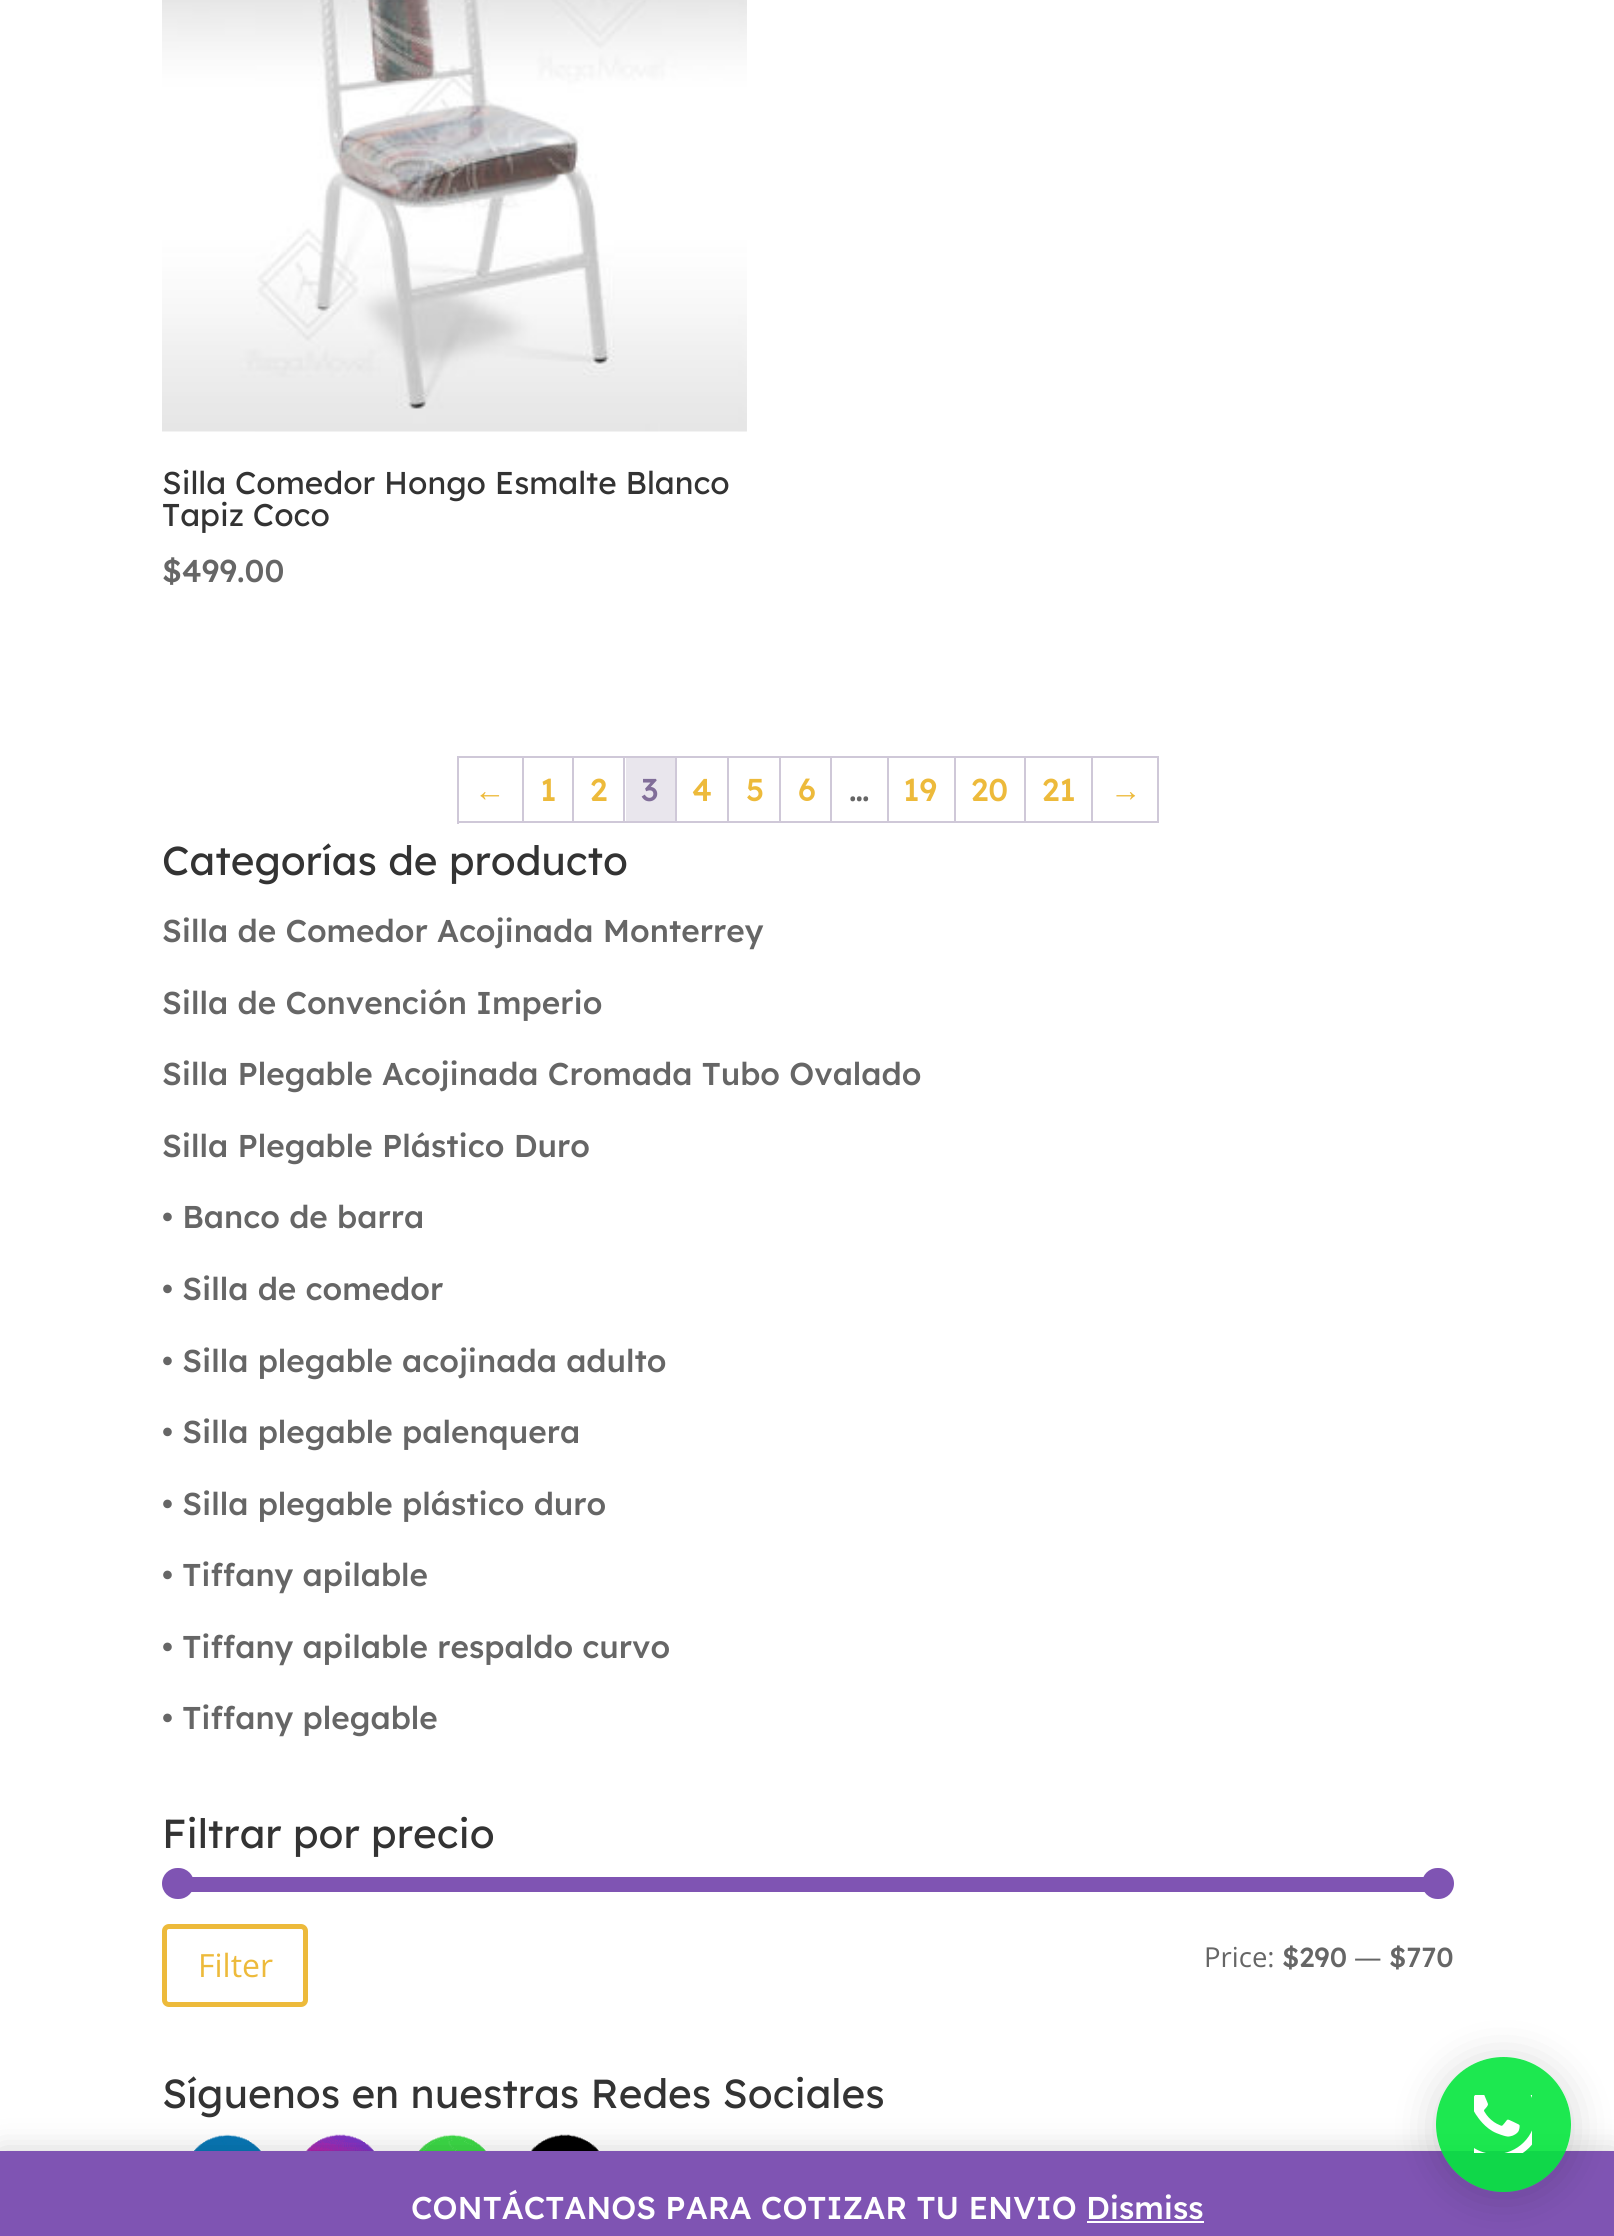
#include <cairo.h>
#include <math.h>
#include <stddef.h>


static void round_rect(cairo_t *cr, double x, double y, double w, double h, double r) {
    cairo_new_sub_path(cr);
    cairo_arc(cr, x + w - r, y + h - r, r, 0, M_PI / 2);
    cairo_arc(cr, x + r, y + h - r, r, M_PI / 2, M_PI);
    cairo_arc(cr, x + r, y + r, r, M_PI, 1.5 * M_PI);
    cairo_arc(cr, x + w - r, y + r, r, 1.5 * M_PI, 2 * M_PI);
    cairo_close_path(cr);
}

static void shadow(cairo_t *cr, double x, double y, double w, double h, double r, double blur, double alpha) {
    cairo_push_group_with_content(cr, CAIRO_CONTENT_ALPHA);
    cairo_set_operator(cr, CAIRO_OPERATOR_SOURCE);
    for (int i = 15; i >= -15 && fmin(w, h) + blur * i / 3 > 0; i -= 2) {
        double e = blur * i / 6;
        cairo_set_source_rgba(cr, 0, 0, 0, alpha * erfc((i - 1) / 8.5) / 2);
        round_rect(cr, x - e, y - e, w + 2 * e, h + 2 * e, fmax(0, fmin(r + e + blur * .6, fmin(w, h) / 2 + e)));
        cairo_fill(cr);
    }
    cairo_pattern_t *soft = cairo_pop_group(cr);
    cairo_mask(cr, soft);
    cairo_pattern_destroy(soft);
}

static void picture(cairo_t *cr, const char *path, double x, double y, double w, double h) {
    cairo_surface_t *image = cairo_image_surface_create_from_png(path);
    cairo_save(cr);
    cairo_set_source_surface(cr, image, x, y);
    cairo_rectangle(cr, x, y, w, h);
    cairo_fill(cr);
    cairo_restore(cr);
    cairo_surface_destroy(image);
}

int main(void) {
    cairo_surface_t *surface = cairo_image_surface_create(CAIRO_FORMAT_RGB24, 1614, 2236);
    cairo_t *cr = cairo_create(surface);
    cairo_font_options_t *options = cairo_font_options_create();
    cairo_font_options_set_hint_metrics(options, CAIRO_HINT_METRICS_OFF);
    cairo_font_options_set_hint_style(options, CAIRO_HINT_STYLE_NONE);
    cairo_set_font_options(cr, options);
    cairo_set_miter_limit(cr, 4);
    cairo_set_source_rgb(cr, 1, 1, 1);
    cairo_paint(cr);
    picture(cr, "img1.png", 162, 0, 585, 432);
    cairo_select_font_face(cr, "Lexend", CAIRO_FONT_SLANT_NORMAL, CAIRO_FONT_WEIGHT_NORMAL);
    cairo_set_font_size(cr, 31.5);
    cairo_set_source_rgb(cr, 0.2, 0.2, 0.2);
    cairo_move_to(cr, 162, 494);
    cairo_show_text(cr, "Silla Comedor Hongo Esmalte Blanco");
    cairo_move_to(cr, 162, 526);
    cairo_show_text(cr, "Tapiz Coco");
    cairo_select_font_face(cr, "Lexend Medium", CAIRO_FONT_SLANT_NORMAL, CAIRO_FONT_WEIGHT_NORMAL);
    cairo_set_source_rgb(cr, 0.4, 0.4, 0.4);
    cairo_move_to(cr, 162, 582);
    cairo_show_text(cr, "$499.00");
    cairo_set_source_rgb(cr, 0.812, 0.784, 0.847);
    cairo_rectangle(cr, 457, 756, 702, 2);
    cairo_fill(cr);
    cairo_rectangle(cr, 457, 821, 702, 2);
    cairo_fill(cr);
    cairo_rectangle(cr, 457, 756, 2, 68);
    cairo_fill(cr);
    cairo_rectangle(cr, 522, 758, 2, 63);
    cairo_fill(cr);
    cairo_select_font_face(cr, "Liberation Sans", CAIRO_FONT_SLANT_NORMAL, CAIRO_FONT_WEIGHT_NORMAL);
    cairo_set_source_rgb(cr, 0.929, 0.729, 0.231);
    cairo_move_to(cr, 474, 801);
    cairo_show_text(cr, "←");
    cairo_set_source_rgb(cr, 0.812, 0.784, 0.847);
    cairo_rectangle(cr, 572, 758, 2, 63);
    cairo_fill(cr);
    cairo_select_font_face(cr, "Lexend Medium", CAIRO_FONT_SLANT_NORMAL, CAIRO_FONT_WEIGHT_NORMAL);
    cairo_set_source_rgb(cr, 0.929, 0.729, 0.231);
    cairo_move_to(cr, 540, 801);
    cairo_show_text(cr, "1");
    cairo_set_source_rgb(cr, 0.812, 0.784, 0.847);
    cairo_rectangle(cr, 623, 758, 2, 63);
    cairo_fill(cr);
    cairo_set_source_rgb(cr, 0.929, 0.729, 0.231);
    cairo_move_to(cr, 590, 801);
    cairo_show_text(cr, "2");
    cairo_set_source_rgb(cr, 0.812, 0.784, 0.847);
    cairo_rectangle(cr, 675, 758, 2, 63);
    cairo_fill(cr);
    cairo_set_source_rgb(cr, 0.914, 0.902, 0.929);
    cairo_rectangle(cr, 626, 758, 49, 63);
    cairo_fill(cr);
    cairo_set_source_rgb(cr, 0.506, 0.431, 0.6);
    cairo_move_to(cr, 641, 801);
    cairo_show_text(cr, "3");
    cairo_set_source_rgb(cr, 0.812, 0.784, 0.847);
    cairo_rectangle(cr, 727, 758, 2, 63);
    cairo_fill(cr);
    cairo_set_source_rgb(cr, 0.929, 0.729, 0.231);
    cairo_move_to(cr, 692, 801);
    cairo_show_text(cr, "4");
    cairo_set_source_rgb(cr, 0.812, 0.784, 0.847);
    cairo_rectangle(cr, 779, 758, 2, 63);
    cairo_fill(cr);
    cairo_set_source_rgb(cr, 0.929, 0.729, 0.231);
    cairo_move_to(cr, 746, 801);
    cairo_show_text(cr, "5");
    cairo_set_source_rgb(cr, 0.812, 0.784, 0.847);
    cairo_rectangle(cr, 830, 758, 2, 63);
    cairo_fill(cr);
    cairo_set_source_rgb(cr, 0.929, 0.729, 0.231);
    cairo_move_to(cr, 798, 801);
    cairo_show_text(cr, "6");
    cairo_set_source_rgb(cr, 0.812, 0.784, 0.847);
    cairo_rectangle(cr, 887, 758, 2, 63);
    cairo_fill(cr);
    cairo_set_source_rgb(cr, 0.4, 0.4, 0.4);
    cairo_move_to(cr, 849, 801);
    cairo_show_text(cr, "…");
    cairo_set_source_rgb(cr, 0.812, 0.784, 0.847);
    cairo_rectangle(cr, 954, 758, 2, 63);
    cairo_fill(cr);
    cairo_set_source_rgb(cr, 0.929, 0.729, 0.231);
    cairo_move_to(cr, 903, 801);
    cairo_show_text(cr, "19");
    cairo_set_source_rgb(cr, 0.812, 0.784, 0.847);
    cairo_rectangle(cr, 1024, 758, 2, 63);
    cairo_fill(cr);
    cairo_set_source_rgb(cr, 0.929, 0.729, 0.231);
    cairo_move_to(cr, 971, 801);
    cairo_show_text(cr, "20");
    cairo_set_source_rgb(cr, 0.812, 0.784, 0.847);
    cairo_rectangle(cr, 1091, 758, 2, 63);
    cairo_fill(cr);
    cairo_set_source_rgb(cr, 0.929, 0.729, 0.231);
    cairo_move_to(cr, 1042, 801);
    cairo_show_text(cr, "21");
    cairo_set_source_rgb(cr, 0.812, 0.784, 0.847);
    cairo_rectangle(cr, 1157, 758, 2, 63);
    cairo_fill(cr);
    cairo_select_font_face(cr, "Liberation Sans", CAIRO_FONT_SLANT_NORMAL, CAIRO_FONT_WEIGHT_NORMAL);
    cairo_set_source_rgb(cr, 0.929, 0.729, 0.231);
    cairo_move_to(cr, 1110, 801);
    cairo_show_text(cr, "→");
    cairo_select_font_face(cr, "Lexend", CAIRO_FONT_SLANT_NORMAL, CAIRO_FONT_WEIGHT_NORMAL);
    cairo_set_font_size(cr, 40.5);
    cairo_set_source_rgb(cr, 0.2, 0.2, 0.2);
    cairo_move_to(cr, 162, 875);
    cairo_show_text(cr, "Categorías de producto");
    cairo_select_font_face(cr, "Lexend Medium", CAIRO_FONT_SLANT_NORMAL, CAIRO_FONT_WEIGHT_NORMAL);
    cairo_set_font_size(cr, 31.5);
    cairo_set_source_rgb(cr, 0.4, 0.4, 0.4);
    cairo_move_to(cr, 162, 942);
    cairo_show_text(cr, "Silla de Comedor Acojinada Monterrey");
    cairo_move_to(cr, 162, 1014);
    cairo_show_text(cr, "Silla de Convención Imperio");
    cairo_move_to(cr, 162, 1085);
    cairo_show_text(cr, "Silla Plegable Acojinada Cromada Tubo Ovalado");
    cairo_move_to(cr, 162, 1157);
    cairo_show_text(cr, "Silla Plegable Plástico Duro");
    cairo_move_to(cr, 162, 1228);
    cairo_show_text(cr, "• Banco de barra");
    cairo_move_to(cr, 162, 1300);
    cairo_show_text(cr, "• Silla de comedor");
    cairo_move_to(cr, 162, 1372);
    cairo_show_text(cr, "• Silla plegable acojinada adulto");
    cairo_move_to(cr, 162, 1443);
    cairo_show_text(cr, "• Silla plegable palenquera");
    cairo_move_to(cr, 162, 1515);
    cairo_show_text(cr, "• Silla plegable plástico duro");
    cairo_move_to(cr, 162, 1586);
    cairo_show_text(cr, "• Tiffany apilable");
    cairo_move_to(cr, 162, 1658);
    cairo_show_text(cr, "• Tiffany apilable respaldo curvo");
    cairo_move_to(cr, 162, 1729);
    cairo_show_text(cr, "• Tiffany plegable");
    cairo_select_font_face(cr, "Lexend", CAIRO_FONT_SLANT_NORMAL, CAIRO_FONT_WEIGHT_NORMAL);
    cairo_set_font_size(cr, 40.5);
    cairo_set_source_rgb(cr, 0.2, 0.2, 0.2);
    cairo_move_to(cr, 162, 1848);
    cairo_show_text(cr, "Filtrar por precio");
    cairo_set_source_rgb(cr, 0.498, 0.329, 0.702);
    cairo_rectangle(cr, 191, 1877, 1234, 15);
    cairo_fill(cr);
    round_rect(cr, 162, 1868, 32, 31, 15.5);
    cairo_fill(cr);
    round_rect(cr, 1422, 1868, 32, 31, 15.5);
    cairo_fill(cr);
    round_rect(cr, 164.5, 1926.5, 141, 78, 4.5);
    cairo_set_source_rgb(cr, 0.929, 0.729, 0.231);
    cairo_set_line_width(cr, 5);
    cairo_stroke(cr);
    cairo_select_font_face(cr, "Open Sans", CAIRO_FONT_SLANT_NORMAL, CAIRO_FONT_WEIGHT_NORMAL);
    cairo_set_font_size(cr, 32);
    cairo_move_to(cr, 198, 1977);
    cairo_show_text(cr, "Filter");
    cairo_set_font_size(cr, 27.5);
    cairo_set_source_rgb(cr, 0.4, 0.4, 0.4);
    cairo_move_to(cr, 1204, 1967);
    cairo_show_text(cr, "Price:");
    cairo_select_font_face(cr, "Lexend Medium", CAIRO_FONT_SLANT_NORMAL, CAIRO_FONT_WEIGHT_NORMAL);
    cairo_move_to(cr, 1282, 1967);
    cairo_show_text(cr, "$290");
    cairo_select_font_face(cr, "Open Sans", CAIRO_FONT_SLANT_NORMAL, CAIRO_FONT_WEIGHT_NORMAL);
    cairo_move_to(cr, 1354, 1967);
    cairo_show_text(cr, "—");
    cairo_select_font_face(cr, "Lexend Medium", CAIRO_FONT_SLANT_NORMAL, CAIRO_FONT_WEIGHT_NORMAL);
    cairo_move_to(cr, 1389, 1967);
    cairo_show_text(cr, "$770");
    cairo_select_font_face(cr, "Lexend", CAIRO_FONT_SLANT_NORMAL, CAIRO_FONT_WEIGHT_NORMAL);
    cairo_set_font_size(cr, 40.5);
    cairo_set_source_rgb(cr, 0.2, 0.2, 0.2);
    cairo_move_to(cr, 162, 2108);
    cairo_show_text(cr, "Síguenos en nuestras Redes Sociales");
    picture(cr, "img2.png", 194, 2134, 67, 17);
    picture(cr, "img3.png", 306, 2134, 68, 17);
    picture(cr, "img4.png", 419, 2134, 67, 17);
    picture(cr, "img5.png", 531, 2134, 68, 17);
    cairo_set_source_rgb(cr, 0, 0, 0);
    shadow(cr, 0, 2153, 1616, 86, 0, 16, 0.2);
    cairo_set_source_rgb(cr, 0.498, 0.329, 0.702);
    cairo_rectangle(cr, 0, 2151, 1614, 85);
    cairo_fill(cr);
    cairo_save(cr);
    cairo_set_fill_rule(cr, CAIRO_FILL_RULE_EVEN_ODD);
    cairo_new_path(cr);
    cairo_move_to(cr, 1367, 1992);
    cairo_line_to(cr, 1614, 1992);
    cairo_line_to(cr, 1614, 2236);
    cairo_line_to(cr, 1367, 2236);
    cairo_close_path(cr);
    cairo_move_to(cr, 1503.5, 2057);
    cairo_curve_to(cr, 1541, 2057, 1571, 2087, 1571, 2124.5);
    cairo_curve_to(cr, 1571, 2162, 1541, 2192, 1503.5, 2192);
    cairo_curve_to(cr, 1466, 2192, 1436, 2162, 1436, 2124.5);
    cairo_curve_to(cr, 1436, 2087, 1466, 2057, 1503.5, 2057);
    cairo_close_path(cr);
    cairo_clip(cr);
    cairo_set_source_rgb(cr, 0, 0, 0);
    shadow(cr, 1436, 2061, 135, 135, 67.5, 22.5, 0.16);
    cairo_restore(cr);
    cairo_set_source_rgba(cr, 0.02, 0.902, 0.239, 0.9);
    cairo_arc(cr, 1503.5, 2124.5, 67.5, 0, 2 * M_PI);
    cairo_fill(cr);
    picture(cr, "img6.png", 1474, 2095, 58, 58);
    cairo_select_font_face(cr, "Lexend Medium", CAIRO_FONT_SLANT_NORMAL, CAIRO_FONT_WEIGHT_NORMAL);
    cairo_set_font_size(cr, 31.5);
    cairo_set_source_rgb(cr, 1, 1, 1);
    cairo_move_to(cr, 411, 2219);
    cairo_show_text(cr, "CONTÁCTANOS PARA COTIZAR TU ENVIO Dismiss");
    cairo_rectangle(cr, 1087, 2221, 117, 2);
    cairo_fill(cr);
    cairo_surface_write_to_png(surface, "page.png");
    cairo_font_options_destroy(options);
    cairo_destroy(cr);
    cairo_surface_destroy(surface);
    return 0;
}
